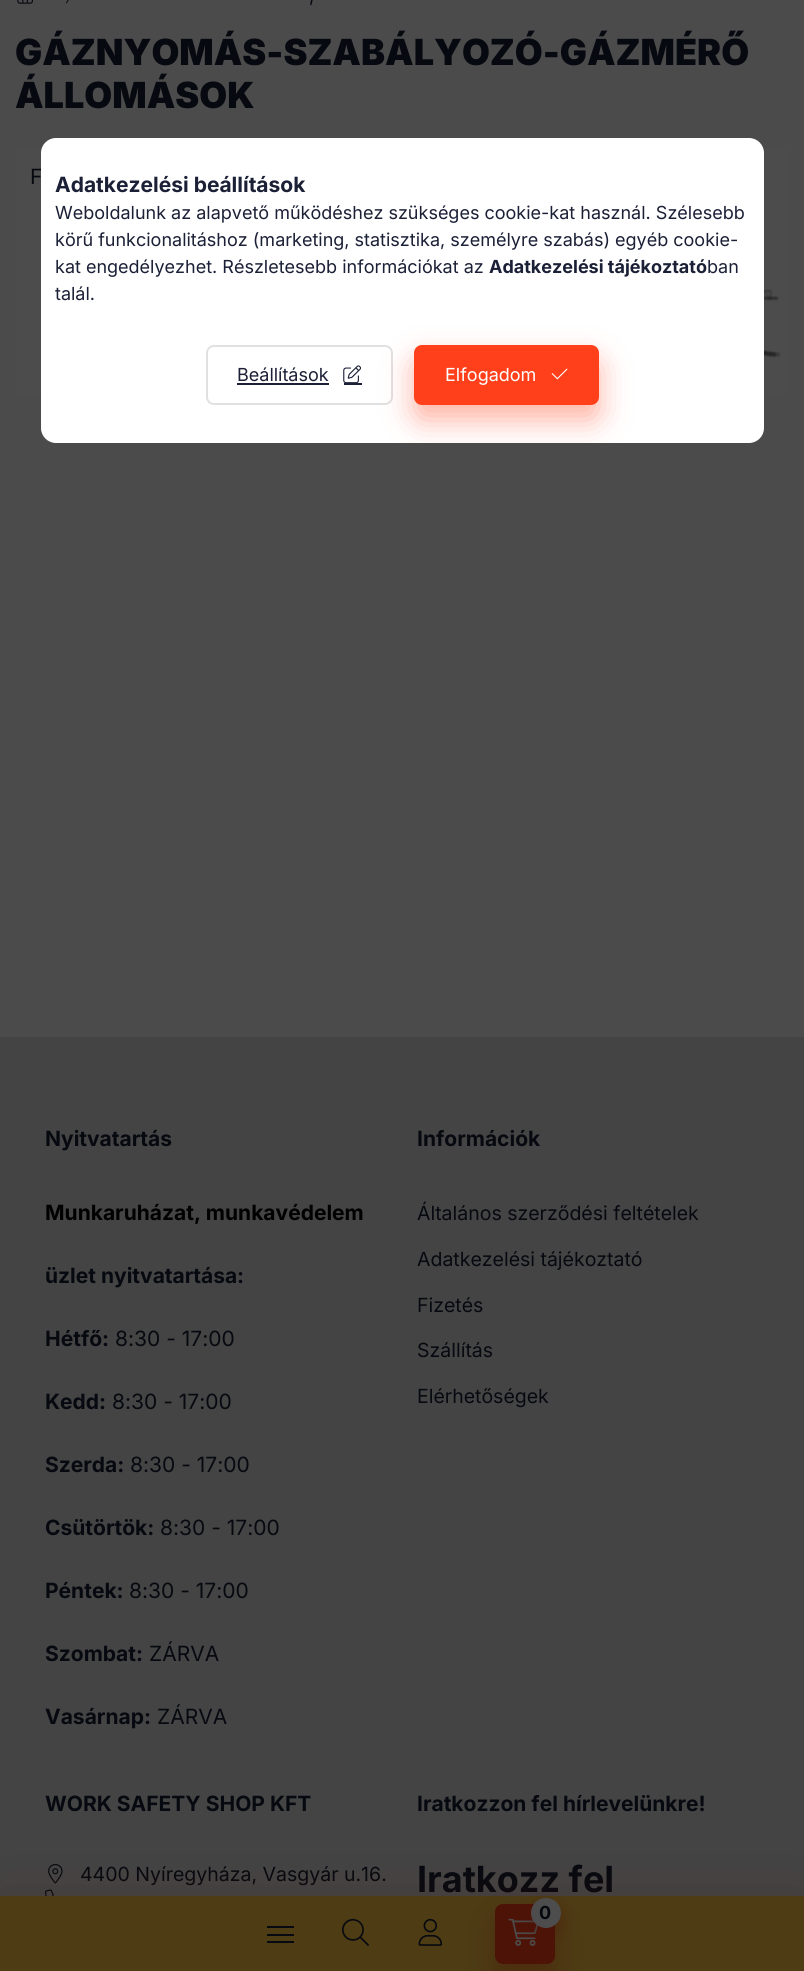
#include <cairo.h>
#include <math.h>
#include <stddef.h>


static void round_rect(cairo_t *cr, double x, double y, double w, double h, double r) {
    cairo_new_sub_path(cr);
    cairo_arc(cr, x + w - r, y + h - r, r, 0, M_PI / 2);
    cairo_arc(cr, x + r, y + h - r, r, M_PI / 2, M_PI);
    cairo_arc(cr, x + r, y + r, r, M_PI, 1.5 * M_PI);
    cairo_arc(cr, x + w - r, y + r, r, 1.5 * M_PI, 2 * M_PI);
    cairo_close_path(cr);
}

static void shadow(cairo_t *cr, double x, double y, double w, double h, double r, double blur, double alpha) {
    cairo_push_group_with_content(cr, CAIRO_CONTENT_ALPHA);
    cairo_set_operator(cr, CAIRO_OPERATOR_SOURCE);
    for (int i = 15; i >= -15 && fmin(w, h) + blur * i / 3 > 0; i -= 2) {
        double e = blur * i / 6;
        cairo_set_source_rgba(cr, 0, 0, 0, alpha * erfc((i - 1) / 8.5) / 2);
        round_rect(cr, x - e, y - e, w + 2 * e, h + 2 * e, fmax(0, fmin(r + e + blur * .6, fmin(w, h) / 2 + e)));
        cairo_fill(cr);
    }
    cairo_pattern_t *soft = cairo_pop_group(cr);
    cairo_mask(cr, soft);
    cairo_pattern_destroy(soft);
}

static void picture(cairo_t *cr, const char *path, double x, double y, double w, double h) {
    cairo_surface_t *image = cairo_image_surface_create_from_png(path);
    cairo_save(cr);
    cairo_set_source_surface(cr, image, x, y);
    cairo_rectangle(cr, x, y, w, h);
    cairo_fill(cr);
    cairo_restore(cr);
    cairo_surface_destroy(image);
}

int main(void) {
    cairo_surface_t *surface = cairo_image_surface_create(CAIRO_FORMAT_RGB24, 804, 1971);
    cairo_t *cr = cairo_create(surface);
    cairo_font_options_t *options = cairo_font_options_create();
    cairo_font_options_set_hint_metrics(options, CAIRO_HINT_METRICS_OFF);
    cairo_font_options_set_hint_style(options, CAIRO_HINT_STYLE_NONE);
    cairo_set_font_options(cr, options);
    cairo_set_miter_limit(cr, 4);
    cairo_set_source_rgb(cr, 0.294, 0.294, 0.294);
    cairo_paint(cr);
    picture(cr, "img1.png", 17, 0, 16, 4);
    picture(cr, "img2.png", 66, 0, 3, 4);
    cairo_select_font_face(cr, "Inter", CAIRO_FONT_SLANT_NORMAL, CAIRO_FONT_WEIGHT_NORMAL);
    cairo_set_font_size(cr, 18);
    cairo_set_source_rgb(cr, 0.031, 0.039, 0.063);
    cairo_move_to(cr, 309, 2);
    cairo_show_text(cr, ",");
    cairo_select_font_face(cr, "Inter Black", CAIRO_FONT_SLANT_NORMAL, CAIRO_FONT_WEIGHT_NORMAL);
    cairo_set_font_size(cr, 36);
    cairo_move_to(cr, 15, 65);
    cairo_show_text(cr, "GÁZNYOMÁS-SZABÁLYOZÓ-GÁZMÉRŐ");
    cairo_move_to(cr, 15, 108);
    cairo_show_text(cr, "ÁLLOMÁSOK");
    picture(cr, "img3.png", 15, 148, 27, 248);
    cairo_select_font_face(cr, "Inter", CAIRO_FONT_SLANT_NORMAL, CAIRO_FONT_WEIGHT_NORMAL);
    cairo_set_font_size(cr, 21);
    cairo_move_to(cr, 30, 184);
    cairo_show_text(cr, "F");
    picture(cr, "img4.png", 763, 148, 25, 247);
    cairo_set_source_rgb(cr, 0.267, 0.267, 0.267);
    cairo_rectangle(cr, 0, 1037, 804, 859);
    cairo_fill(cr);
    cairo_select_font_face(cr, "Inter", CAIRO_FONT_SLANT_NORMAL, CAIRO_FONT_WEIGHT_BOLD);
    cairo_set_source_rgb(cr, 0.031, 0.039, 0.063);
    cairo_move_to(cr, 45, 1146);
    cairo_show_text(cr, "Nyitvatartás");
    cairo_set_source_rgb(cr, 0, 0, 0);
    cairo_move_to(cr, 45, 1220);
    cairo_show_text(cr, "Munkaruházat, munkavédelem");
    cairo_set_source_rgb(cr, 0.031, 0.039, 0.063);
    cairo_move_to(cr, 45, 1283);
    cairo_show_text(cr, "üzlet nyitvatartása:");
    cairo_move_to(cr, 45, 1346);
    cairo_show_text(cr, "Hétfő:");
    cairo_select_font_face(cr, "Inter", CAIRO_FONT_SLANT_NORMAL, CAIRO_FONT_WEIGHT_NORMAL);
    cairo_move_to(cr, 115, 1346);
    cairo_show_text(cr, "8:30 - 17:00");
    cairo_select_font_face(cr, "Inter", CAIRO_FONT_SLANT_NORMAL, CAIRO_FONT_WEIGHT_BOLD);
    cairo_move_to(cr, 45, 1409);
    cairo_show_text(cr, "Kedd:");
    cairo_select_font_face(cr, "Inter", CAIRO_FONT_SLANT_NORMAL, CAIRO_FONT_WEIGHT_NORMAL);
    cairo_move_to(cr, 112, 1409);
    cairo_show_text(cr, "8:30 - 17:00");
    cairo_select_font_face(cr, "Inter", CAIRO_FONT_SLANT_NORMAL, CAIRO_FONT_WEIGHT_BOLD);
    cairo_move_to(cr, 45, 1472);
    cairo_show_text(cr, "Szerda:");
    cairo_select_font_face(cr, "Inter", CAIRO_FONT_SLANT_NORMAL, CAIRO_FONT_WEIGHT_NORMAL);
    cairo_move_to(cr, 130, 1472);
    cairo_show_text(cr, "8:30 - 17:00");
    cairo_select_font_face(cr, "Inter", CAIRO_FONT_SLANT_NORMAL, CAIRO_FONT_WEIGHT_BOLD);
    cairo_move_to(cr, 45, 1535);
    cairo_show_text(cr, "Csütörtök:");
    cairo_select_font_face(cr, "Inter", CAIRO_FONT_SLANT_NORMAL, CAIRO_FONT_WEIGHT_NORMAL);
    cairo_move_to(cr, 160, 1535);
    cairo_show_text(cr, "8:30 - 17:00");
    cairo_select_font_face(cr, "Inter", CAIRO_FONT_SLANT_NORMAL, CAIRO_FONT_WEIGHT_BOLD);
    cairo_move_to(cr, 45, 1598);
    cairo_show_text(cr, "Péntek:");
    cairo_select_font_face(cr, "Inter", CAIRO_FONT_SLANT_NORMAL, CAIRO_FONT_WEIGHT_NORMAL);
    cairo_move_to(cr, 129, 1598);
    cairo_show_text(cr, "8:30 - 17:00");
    cairo_select_font_face(cr, "Inter", CAIRO_FONT_SLANT_NORMAL, CAIRO_FONT_WEIGHT_BOLD);
    cairo_move_to(cr, 45, 1661);
    cairo_show_text(cr, "Szombat:");
    cairo_select_font_face(cr, "Inter", CAIRO_FONT_SLANT_NORMAL, CAIRO_FONT_WEIGHT_NORMAL);
    cairo_move_to(cr, 149, 1661);
    cairo_show_text(cr, "ZÁRVA");
    cairo_select_font_face(cr, "Inter", CAIRO_FONT_SLANT_NORMAL, CAIRO_FONT_WEIGHT_BOLD);
    cairo_move_to(cr, 45, 1724);
    cairo_show_text(cr, "Vasárnap:");
    cairo_select_font_face(cr, "Inter", CAIRO_FONT_SLANT_NORMAL, CAIRO_FONT_WEIGHT_NORMAL);
    cairo_move_to(cr, 157, 1724);
    cairo_show_text(cr, "ZÁRVA");
    cairo_select_font_face(cr, "Inter", CAIRO_FONT_SLANT_NORMAL, CAIRO_FONT_WEIGHT_BOLD);
    cairo_move_to(cr, 417, 1146);
    cairo_show_text(cr, "Információk");
    cairo_select_font_face(cr, "Inter", CAIRO_FONT_SLANT_NORMAL, CAIRO_FONT_WEIGHT_NORMAL);
    cairo_set_font_size(cr, 19.5);
    cairo_move_to(cr, 417, 1220);
    cairo_show_text(cr, "Általános szerződési feltételek");
    cairo_move_to(cr, 417, 1266);
    cairo_show_text(cr, "Adatkezelési tájékoztató");
    cairo_move_to(cr, 417, 1312);
    cairo_show_text(cr, "Fizetés");
    cairo_move_to(cr, 417, 1357);
    cairo_show_text(cr, "Szállítás");
    cairo_move_to(cr, 417, 1403);
    cairo_show_text(cr, "Elérhetőségek");
    cairo_select_font_face(cr, "Inter", CAIRO_FONT_SLANT_NORMAL, CAIRO_FONT_WEIGHT_BOLD);
    cairo_set_font_size(cr, 21);
    cairo_move_to(cr, 45, 1811);
    cairo_show_text(cr, "WORK SAFETY SHOP KFT");
    picture(cr, "img5.png", 48, 1863, 15, 21);
    cairo_select_font_face(cr, "Inter", CAIRO_FONT_SLANT_NORMAL, CAIRO_FONT_WEIGHT_NORMAL);
    cairo_set_font_size(cr, 19.5);
    cairo_move_to(cr, 80, 1881);
    cairo_show_text(cr, "4400 Nyíregyháza, Vasgyár u.16.");
    picture(cr, "img6.png", 45, 1889, 9, 7);
    cairo_select_font_face(cr, "Inter", CAIRO_FONT_SLANT_NORMAL, CAIRO_FONT_WEIGHT_BOLD);
    cairo_set_font_size(cr, 21);
    cairo_move_to(cr, 417, 1811);
    cairo_show_text(cr, "Iratkozzon fel hírlevelünkre!");
    cairo_set_font_size(cr, 36);
    cairo_move_to(cr, 417, 1892);
    cairo_show_text(cr, "Iratkozz fel");
    cairo_set_source_rgb(cr, 0.302, 0.075, 0.031);
    shadow(cr, 0, 1896, 804, 75, 0, 22.5, 0.2);
    cairo_set_source_rgb(cr, 0.302, 0.235, 0.082);
    cairo_rectangle(cr, 0, 1896, 804, 75);
    cairo_fill(cr);
    cairo_set_source_rgb(cr, 0.302, 0.075, 0.031);
    shadow(cr, 495, 1919, 60, 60, 8, 15, 0.4);
    cairo_set_source_rgb(cr, 0.302, 0.075, 0.031);
    round_rect(cr, 495, 1904, 60, 60, 8);
    cairo_fill(cr);
    picture(cr, "img7.png", 508, 1918, 30, 28);
    cairo_set_source_rgb(cr, 0.302, 0.075, 0.031);
    shadow(cr, 531, 1905, 30, 30, 15, 7.5, 0.4);
    cairo_set_source_rgb(cr, 0.302, 0.302, 0.302);
    cairo_arc(cr, 546, 1913, 15, 0, 2 * M_PI);
    cairo_fill(cr);
    cairo_set_font_size(cr, 18);
    cairo_set_source_rgb(cr, 0.031, 0.039, 0.063);
    cairo_move_to(cr, 539, 1919);
    cairo_show_text(cr, "0");
    cairo_rectangle(cr, 267, 1926, 27, 2);
    cairo_fill(cr);
    cairo_rectangle(cr, 267, 1934, 27, 2);
    cairo_fill(cr);
    cairo_rectangle(cr, 267, 1941, 27, 2);
    cairo_fill(cr);
    picture(cr, "img8.png", 342, 1918, 27, 28);
    picture(cr, "img9.png", 418, 1918, 25, 28);
    cairo_set_source_rgb(cr, 1, 1, 1);
    round_rect(cr, 41, 138, 723, 305, 15);
    cairo_fill(cr);
    cairo_set_font_size(cr, 21);
    cairo_set_source_rgb(cr, 0.106, 0.125, 0.212);
    cairo_move_to(cr, 55, 192);
    cairo_show_text(cr, "Adatkezelési beállítások");
    cairo_select_font_face(cr, "Inter", CAIRO_FONT_SLANT_NORMAL, CAIRO_FONT_WEIGHT_NORMAL);
    cairo_set_font_size(cr, 18);
    cairo_move_to(cr, 55, 219);
    cairo_show_text(cr, "Weboldalunk az alapvető működéshez szükséges cookie-kat használ. Szélesebb");
    cairo_move_to(cr, 55, 246);
    cairo_show_text(cr, "körű funkcionalitáshoz (marketing, statisztika, személyre szabás) egyéb cookie-");
    cairo_move_to(cr, 55, 273);
    cairo_show_text(cr, "kat engedélyezhet. Részletesebb információkat az");
    cairo_select_font_face(cr, "Inter", CAIRO_FONT_SLANT_NORMAL, CAIRO_FONT_WEIGHT_BOLD);
    cairo_move_to(cr, 489, 273);
    cairo_show_text(cr, "Adatkezelési tájékoztató");
    cairo_select_font_face(cr, "Inter", CAIRO_FONT_SLANT_NORMAL, CAIRO_FONT_WEIGHT_NORMAL);
    cairo_move_to(cr, 707, 273);
    cairo_show_text(cr, "ban");
    cairo_move_to(cr, 55, 300);
    cairo_show_text(cr, "talál.");
    round_rect(cr, 207, 346, 185, 58, 7);
    cairo_set_source_rgb(cr, 0.882, 0.882, 0.882);
    cairo_stroke(cr);
    cairo_set_source_rgb(cr, 0.106, 0.125, 0.212);
    cairo_move_to(cr, 237, 381);
    cairo_show_text(cr, "Beállítások");
    cairo_rectangle(cr, 237, 383, 92, 2);
    cairo_fill(cr);
    picture(cr, "img10.png", 343, 365, 18, 18);
    cairo_rectangle(cr, 344, 383, 18, 2);
    cairo_fill(cr);
    cairo_save(cr);
    round_rect(cr, 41, 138, 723, 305, 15);
    cairo_clip(cr);
    cairo_set_source_rgb(cr, 1, 0.251, 0.106);
    shadow(cr, 414, 360, 185, 60, 8, 15, 0.4);
    cairo_restore(cr);
    cairo_set_source_rgb(cr, 1, 0.251, 0.106);
    round_rect(cr, 415, 346, 183, 58, 7);
    cairo_fill_preserve(cr);
    cairo_stroke(cr);
    cairo_set_source_rgb(cr, 1, 1, 1);
    cairo_move_to(cr, 445, 381);
    cairo_show_text(cr, "Elfogadom");
    picture(cr, "img11.png", 551, 368, 17, 12);
    cairo_surface_write_to_png(surface, "page.png");
    cairo_font_options_destroy(options);
    cairo_destroy(cr);
    cairo_surface_destroy(surface);
    return 0;
}
